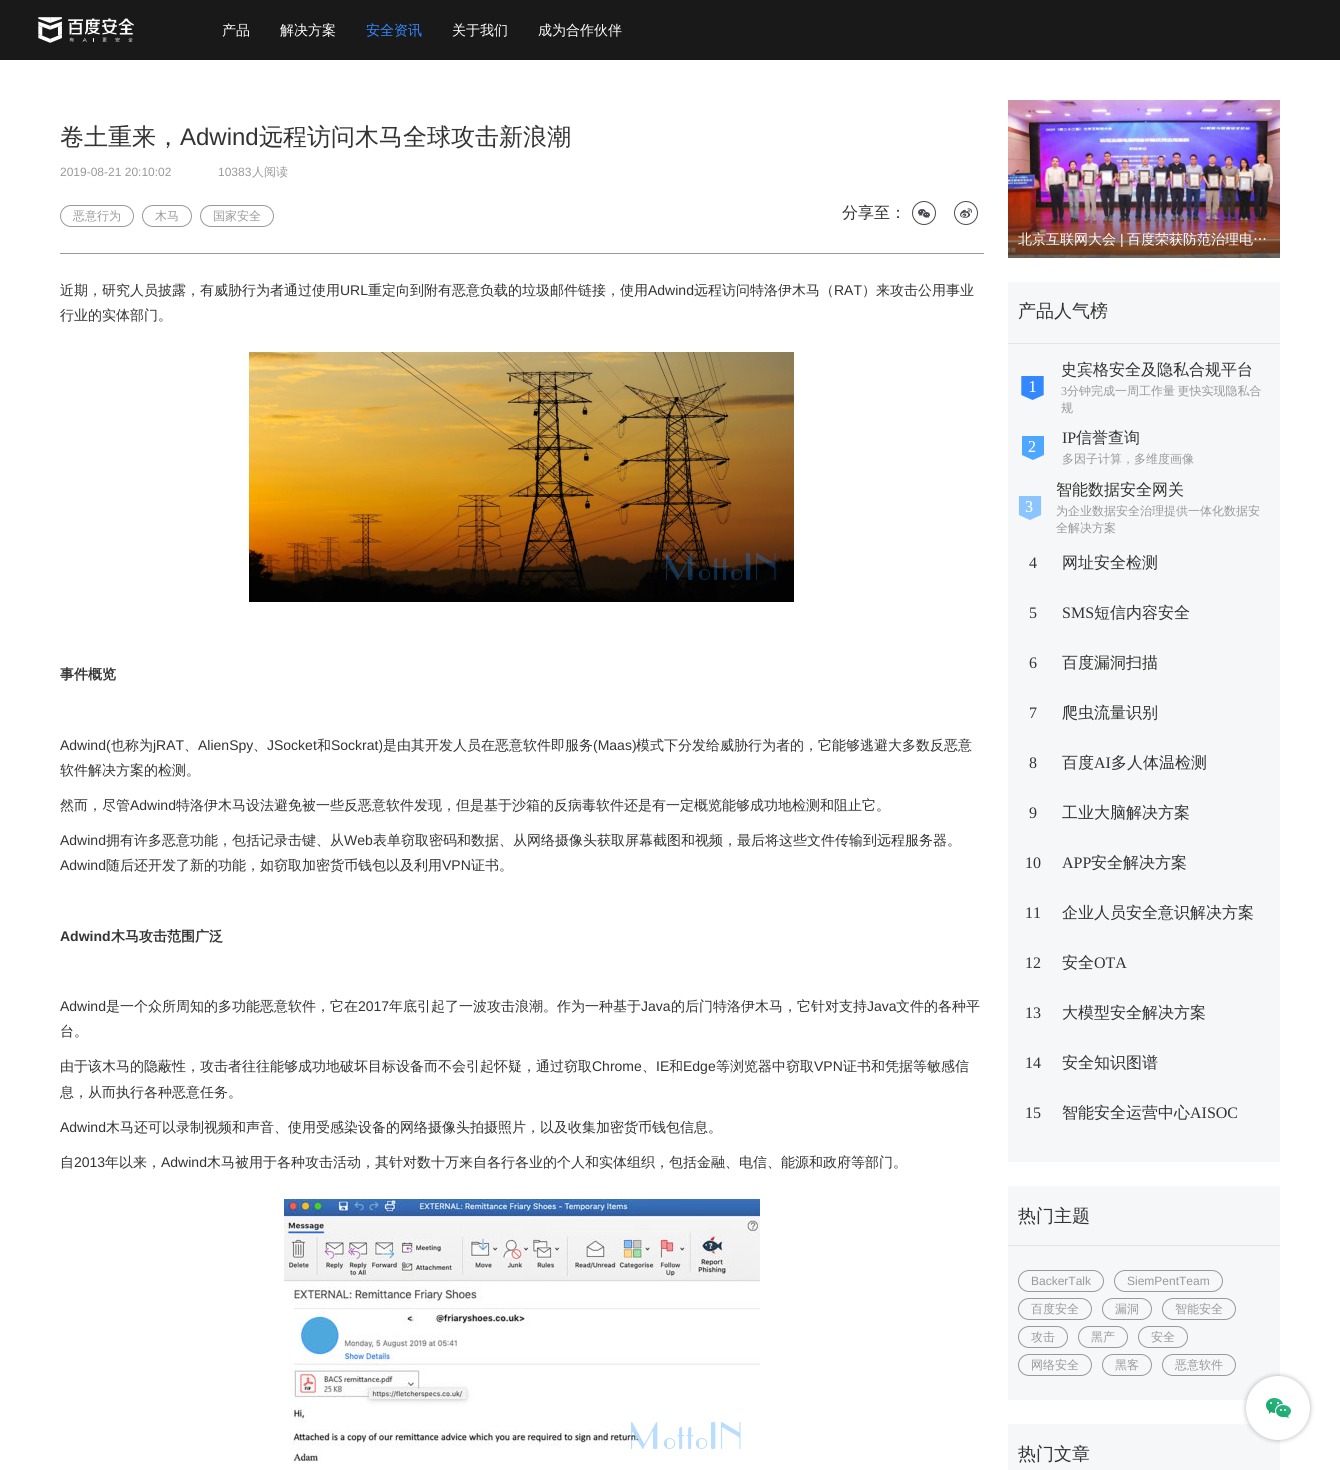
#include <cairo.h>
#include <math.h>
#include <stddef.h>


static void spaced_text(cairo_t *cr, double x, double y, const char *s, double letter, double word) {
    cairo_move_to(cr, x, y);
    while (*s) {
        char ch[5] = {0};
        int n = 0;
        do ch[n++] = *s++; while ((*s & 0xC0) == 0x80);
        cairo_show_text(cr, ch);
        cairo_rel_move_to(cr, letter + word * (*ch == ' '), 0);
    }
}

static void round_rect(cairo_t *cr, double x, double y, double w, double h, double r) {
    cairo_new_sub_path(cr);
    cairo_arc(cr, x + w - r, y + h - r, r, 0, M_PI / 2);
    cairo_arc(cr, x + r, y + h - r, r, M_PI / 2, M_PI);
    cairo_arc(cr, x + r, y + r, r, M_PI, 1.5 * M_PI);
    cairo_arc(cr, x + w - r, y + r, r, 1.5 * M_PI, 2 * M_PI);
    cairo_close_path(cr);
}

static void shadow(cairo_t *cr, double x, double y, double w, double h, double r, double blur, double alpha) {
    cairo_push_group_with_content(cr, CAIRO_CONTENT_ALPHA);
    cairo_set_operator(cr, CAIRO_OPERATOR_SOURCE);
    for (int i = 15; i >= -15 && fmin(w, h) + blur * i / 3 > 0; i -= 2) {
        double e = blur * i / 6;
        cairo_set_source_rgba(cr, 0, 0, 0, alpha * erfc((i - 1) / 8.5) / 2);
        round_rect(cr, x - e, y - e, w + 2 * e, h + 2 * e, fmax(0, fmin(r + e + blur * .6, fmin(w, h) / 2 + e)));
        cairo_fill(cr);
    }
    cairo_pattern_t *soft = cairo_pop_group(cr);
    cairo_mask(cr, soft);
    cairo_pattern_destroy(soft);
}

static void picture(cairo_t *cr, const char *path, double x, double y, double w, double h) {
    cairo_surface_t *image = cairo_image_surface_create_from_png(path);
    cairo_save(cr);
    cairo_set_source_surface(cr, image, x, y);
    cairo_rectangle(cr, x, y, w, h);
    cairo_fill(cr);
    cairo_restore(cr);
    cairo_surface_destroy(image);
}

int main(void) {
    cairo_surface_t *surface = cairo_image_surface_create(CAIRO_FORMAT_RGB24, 1340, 1470);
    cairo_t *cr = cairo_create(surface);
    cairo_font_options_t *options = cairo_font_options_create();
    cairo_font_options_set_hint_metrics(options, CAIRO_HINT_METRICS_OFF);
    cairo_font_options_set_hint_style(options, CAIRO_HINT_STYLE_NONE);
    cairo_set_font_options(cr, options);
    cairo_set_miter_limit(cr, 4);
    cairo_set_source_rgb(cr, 1, 1, 1);
    cairo_paint(cr);
    cairo_set_source_rgb(cr, 0.098, 0.098, 0.098);
    cairo_rectangle(cr, 0, 0, 1340, 60);
    cairo_fill(cr);
    picture(cr, "img1.png", 38, 17, 96, 26);
    cairo_select_font_face(cr, "WenQuanYi Zen Hei Medium", CAIRO_FONT_SLANT_NORMAL, CAIRO_FONT_WEIGHT_NORMAL);
    cairo_set_font_size(cr, 14);
    cairo_set_source_rgb(cr, 1, 1, 1);
    cairo_move_to(cr, 222, 35);
    cairo_show_text(cr, "产品");
    cairo_move_to(cr, 280, 35);
    cairo_show_text(cr, "解决方案");
    cairo_set_source_rgb(cr, 0.2, 0.533, 1);
    cairo_move_to(cr, 366, 35);
    cairo_show_text(cr, "安全资讯");
    cairo_set_source_rgb(cr, 1, 1, 1);
    cairo_move_to(cr, 452, 35);
    cairo_show_text(cr, "关于我们");
    cairo_move_to(cr, 538, 35);
    cairo_show_text(cr, "成为合作伙伴");
    cairo_set_font_size(cr, 24);
    cairo_set_source_rgb(cr, 0.2, 0.2, 0.2);
    cairo_move_to(cr, 60, 145);
    cairo_show_text(cr, "卷土重来，");
    cairo_select_font_face(cr, "Liberation Sans", CAIRO_FONT_SLANT_NORMAL, CAIRO_FONT_WEIGHT_NORMAL);
    cairo_move_to(cr, 180, 145);
    cairo_show_text(cr, "Adwind");
    cairo_select_font_face(cr, "WenQuanYi Zen Hei Medium", CAIRO_FONT_SLANT_NORMAL, CAIRO_FONT_WEIGHT_NORMAL);
    cairo_move_to(cr, 259, 145);
    cairo_show_text(cr, "远程访问木马全球攻击新浪潮");
    cairo_select_font_face(cr, "Liberation Sans", CAIRO_FONT_SLANT_NORMAL, CAIRO_FONT_WEIGHT_NORMAL);
    cairo_set_font_size(cr, 12);
    cairo_set_source_rgb(cr, 0.6, 0.6, 0.6);
    cairo_move_to(cr, 60, 176);
    cairo_show_text(cr, "2019-08-21 20:10:02");
    cairo_move_to(cr, 218, 176);
    cairo_show_text(cr, "10383");
    cairo_select_font_face(cr, "WenQuanYi Zen Hei Medium", CAIRO_FONT_SLANT_NORMAL, CAIRO_FONT_WEIGHT_NORMAL);
    cairo_move_to(cr, 252, 176);
    cairo_show_text(cr, "人阅读");
    cairo_rectangle(cr, 60, 253, 924, 1);
    cairo_fill(cr);
    round_rect(cr, 60.5, 205.5, 73, 21, 10.5);
    cairo_set_line_width(cr, 1);
    cairo_stroke(cr);
    cairo_move_to(cr, 73, 220);
    cairo_show_text(cr, "恶意行为");
    round_rect(cr, 142.5, 205.5, 49, 21, 10.5);
    cairo_stroke(cr);
    cairo_move_to(cr, 155, 220);
    cairo_show_text(cr, "木马");
    round_rect(cr, 200.5, 205.5, 73, 21, 10.5);
    cairo_stroke(cr);
    cairo_move_to(cr, 213, 220);
    cairo_show_text(cr, "国家安全");
    cairo_set_font_size(cr, 16);
    cairo_set_source_rgb(cr, 0.2, 0.2, 0.2);
    cairo_move_to(cr, 842, 218);
    cairo_show_text(cr, "分享至：");
    picture(cr, "img2.png", 912, 201, 24, 24);
    picture(cr, "img3.png", 954, 201, 24, 24);
    cairo_set_font_size(cr, 14);
    cairo_move_to(cr, 60, 295);
    cairo_show_text(cr, "近期，研究人员披露，有威胁行为者通过使用");
    cairo_select_font_face(cr, "Liberation Sans", CAIRO_FONT_SLANT_NORMAL, CAIRO_FONT_WEIGHT_NORMAL);
    cairo_move_to(cr, 340, 295);
    cairo_show_text(cr, "URL");
    cairo_select_font_face(cr, "WenQuanYi Zen Hei Medium", CAIRO_FONT_SLANT_NORMAL, CAIRO_FONT_WEIGHT_NORMAL);
    cairo_move_to(cr, 368, 295);
    cairo_show_text(cr, "重定向到附有恶意负载的垃圾邮件链接，使用");
    cairo_select_font_face(cr, "Liberation Sans", CAIRO_FONT_SLANT_NORMAL, CAIRO_FONT_WEIGHT_NORMAL);
    cairo_move_to(cr, 648, 295);
    cairo_show_text(cr, "Adwind");
    cairo_select_font_face(cr, "WenQuanYi Zen Hei Medium", CAIRO_FONT_SLANT_NORMAL, CAIRO_FONT_WEIGHT_NORMAL);
    cairo_move_to(cr, 694, 295);
    cairo_show_text(cr, "远程访问特洛伊木马（");
    cairo_select_font_face(cr, "Liberation Sans", CAIRO_FONT_SLANT_NORMAL, CAIRO_FONT_WEIGHT_NORMAL);
    cairo_move_to(cr, 834, 295);
    cairo_show_text(cr, "RAT");
    cairo_select_font_face(cr, "WenQuanYi Zen Hei Medium", CAIRO_FONT_SLANT_NORMAL, CAIRO_FONT_WEIGHT_NORMAL);
    cairo_move_to(cr, 862, 295);
    cairo_show_text(cr, "）来攻击公用事业");
    cairo_move_to(cr, 60, 320);
    cairo_show_text(cr, "行业的实体部门。");
    picture(cr, "img4.png", 249, 352, 545, 250);
    cairo_select_font_face(cr, "WenQuanYi Zen Hei", CAIRO_FONT_SLANT_NORMAL, CAIRO_FONT_WEIGHT_BOLD);
    cairo_move_to(cr, 60, 679);
    cairo_show_text(cr, "事件概览");
    cairo_select_font_face(cr, "Liberation Sans", CAIRO_FONT_SLANT_NORMAL, CAIRO_FONT_WEIGHT_NORMAL);
    cairo_move_to(cr, 60, 750);
    cairo_show_text(cr, "Adwind(");
    cairo_select_font_face(cr, "WenQuanYi Zen Hei Medium", CAIRO_FONT_SLANT_NORMAL, CAIRO_FONT_WEIGHT_NORMAL);
    cairo_move_to(cr, 111, 750);
    cairo_show_text(cr, "也称为");
    cairo_select_font_face(cr, "Liberation Sans", CAIRO_FONT_SLANT_NORMAL, CAIRO_FONT_WEIGHT_NORMAL);
    cairo_move_to(cr, 153, 750);
    cairo_show_text(cr, "jRAT");
    cairo_select_font_face(cr, "WenQuanYi Zen Hei Medium", CAIRO_FONT_SLANT_NORMAL, CAIRO_FONT_WEIGHT_NORMAL);
    cairo_move_to(cr, 184, 750);
    cairo_show_text(cr, "、");
    cairo_select_font_face(cr, "Liberation Sans", CAIRO_FONT_SLANT_NORMAL, CAIRO_FONT_WEIGHT_NORMAL);
    cairo_move_to(cr, 198, 750);
    cairo_show_text(cr, "AlienSpy");
    cairo_select_font_face(cr, "WenQuanYi Zen Hei Medium", CAIRO_FONT_SLANT_NORMAL, CAIRO_FONT_WEIGHT_NORMAL);
    cairo_move_to(cr, 253, 750);
    cairo_show_text(cr, "、");
    cairo_select_font_face(cr, "Liberation Sans", CAIRO_FONT_SLANT_NORMAL, CAIRO_FONT_WEIGHT_NORMAL);
    cairo_move_to(cr, 267, 750);
    cairo_show_text(cr, "JSocket");
    cairo_select_font_face(cr, "WenQuanYi Zen Hei Medium", CAIRO_FONT_SLANT_NORMAL, CAIRO_FONT_WEIGHT_NORMAL);
    cairo_move_to(cr, 317, 750);
    cairo_show_text(cr, "和");
    cairo_select_font_face(cr, "Liberation Sans", CAIRO_FONT_SLANT_NORMAL, CAIRO_FONT_WEIGHT_NORMAL);
    cairo_move_to(cr, 331, 750);
    cairo_show_text(cr, "Sockrat)");
    cairo_select_font_face(cr, "WenQuanYi Zen Hei Medium", CAIRO_FONT_SLANT_NORMAL, CAIRO_FONT_WEIGHT_NORMAL);
    cairo_move_to(cr, 383, 750);
    cairo_show_text(cr, "是由其开发人员在恶意软件即服务");
    cairo_select_font_face(cr, "Liberation Sans", CAIRO_FONT_SLANT_NORMAL, CAIRO_FONT_WEIGHT_NORMAL);
    cairo_move_to(cr, 593, 750);
    cairo_show_text(cr, "(Maas)");
    cairo_select_font_face(cr, "WenQuanYi Zen Hei Medium", CAIRO_FONT_SLANT_NORMAL, CAIRO_FONT_WEIGHT_NORMAL);
    cairo_move_to(cr, 636, 750);
    cairo_show_text(cr, "模式下分发给威胁行为者的，它能够逃避大多数反恶意");
    cairo_move_to(cr, 60, 775);
    cairo_show_text(cr, "软件解决方案的检测。");
    cairo_move_to(cr, 60, 810);
    cairo_show_text(cr, "然而，尽管");
    cairo_select_font_face(cr, "Liberation Sans", CAIRO_FONT_SLANT_NORMAL, CAIRO_FONT_WEIGHT_NORMAL);
    cairo_move_to(cr, 130, 810);
    cairo_show_text(cr, "Adwind");
    cairo_select_font_face(cr, "WenQuanYi Zen Hei Medium", CAIRO_FONT_SLANT_NORMAL, CAIRO_FONT_WEIGHT_NORMAL);
    cairo_move_to(cr, 176, 810);
    cairo_show_text(cr, "特洛伊木马设法避免被一些反恶意软件发现，但是基于沙箱的反病毒软件还是有一定概览能够成功地检测和阻止它。");
    cairo_select_font_face(cr, "Liberation Sans", CAIRO_FONT_SLANT_NORMAL, CAIRO_FONT_WEIGHT_NORMAL);
    cairo_move_to(cr, 60, 845);
    cairo_show_text(cr, "Adwind");
    cairo_select_font_face(cr, "WenQuanYi Zen Hei Medium", CAIRO_FONT_SLANT_NORMAL, CAIRO_FONT_WEIGHT_NORMAL);
    cairo_move_to(cr, 106, 845);
    cairo_show_text(cr, "拥有许多恶意功能，包括记录击键、从");
    cairo_select_font_face(cr, "Liberation Sans", CAIRO_FONT_SLANT_NORMAL, CAIRO_FONT_WEIGHT_NORMAL);
    cairo_move_to(cr, 344, 845);
    cairo_show_text(cr, "Web");
    cairo_select_font_face(cr, "WenQuanYi Zen Hei Medium", CAIRO_FONT_SLANT_NORMAL, CAIRO_FONT_WEIGHT_NORMAL);
    cairo_move_to(cr, 373, 845);
    cairo_show_text(cr, "表单窃取密码和数据、从网络摄像头获取屏幕截图和视频，最后将这些文件传输到远程服务器。");
    cairo_select_font_face(cr, "Liberation Sans", CAIRO_FONT_SLANT_NORMAL, CAIRO_FONT_WEIGHT_NORMAL);
    cairo_move_to(cr, 60, 870);
    cairo_show_text(cr, "Adwind");
    cairo_select_font_face(cr, "WenQuanYi Zen Hei Medium", CAIRO_FONT_SLANT_NORMAL, CAIRO_FONT_WEIGHT_NORMAL);
    cairo_move_to(cr, 106, 870);
    cairo_show_text(cr, "随后还开发了新的功能，如窃取加密货币钱包以及利用");
    cairo_select_font_face(cr, "Liberation Sans", CAIRO_FONT_SLANT_NORMAL, CAIRO_FONT_WEIGHT_NORMAL);
    cairo_move_to(cr, 442, 870);
    cairo_show_text(cr, "VPN");
    cairo_select_font_face(cr, "WenQuanYi Zen Hei Medium", CAIRO_FONT_SLANT_NORMAL, CAIRO_FONT_WEIGHT_NORMAL);
    cairo_move_to(cr, 471, 870);
    cairo_show_text(cr, "证书。");
    cairo_select_font_face(cr, "Liberation Sans", CAIRO_FONT_SLANT_NORMAL, CAIRO_FONT_WEIGHT_BOLD);
    cairo_move_to(cr, 60, 941);
    cairo_show_text(cr, "Adwind");
    cairo_select_font_face(cr, "WenQuanYi Zen Hei", CAIRO_FONT_SLANT_NORMAL, CAIRO_FONT_WEIGHT_BOLD);
    cairo_move_to(cr, 111, 941);
    cairo_show_text(cr, "木马攻击范围广泛");
    cairo_select_font_face(cr, "Liberation Sans", CAIRO_FONT_SLANT_NORMAL, CAIRO_FONT_WEIGHT_NORMAL);
    cairo_move_to(cr, 60, 1011);
    cairo_show_text(cr, "Adwind");
    cairo_select_font_face(cr, "WenQuanYi Zen Hei Medium", CAIRO_FONT_SLANT_NORMAL, CAIRO_FONT_WEIGHT_NORMAL);
    cairo_move_to(cr, 106, 1011);
    cairo_show_text(cr, "是一个众所周知的多功能恶意软件，它在");
    cairo_select_font_face(cr, "Liberation Sans", CAIRO_FONT_SLANT_NORMAL, CAIRO_FONT_WEIGHT_NORMAL);
    cairo_move_to(cr, 358, 1011);
    cairo_show_text(cr, "2017");
    cairo_select_font_face(cr, "WenQuanYi Zen Hei Medium", CAIRO_FONT_SLANT_NORMAL, CAIRO_FONT_WEIGHT_NORMAL);
    cairo_move_to(cr, 389, 1011);
    cairo_show_text(cr, "年底引起了一波攻击浪潮。作为一种基于");
    cairo_select_font_face(cr, "Liberation Sans", CAIRO_FONT_SLANT_NORMAL, CAIRO_FONT_WEIGHT_NORMAL);
    cairo_move_to(cr, 641, 1011);
    cairo_show_text(cr, "Java");
    cairo_select_font_face(cr, "WenQuanYi Zen Hei Medium", CAIRO_FONT_SLANT_NORMAL, CAIRO_FONT_WEIGHT_NORMAL);
    cairo_move_to(cr, 671, 1011);
    cairo_show_text(cr, "的后门特洛伊木马，它针对支持");
    cairo_select_font_face(cr, "Liberation Sans", CAIRO_FONT_SLANT_NORMAL, CAIRO_FONT_WEIGHT_NORMAL);
    cairo_move_to(cr, 867, 1011);
    cairo_show_text(cr, "Java");
    cairo_select_font_face(cr, "WenQuanYi Zen Hei Medium", CAIRO_FONT_SLANT_NORMAL, CAIRO_FONT_WEIGHT_NORMAL);
    cairo_move_to(cr, 896, 1011);
    cairo_show_text(cr, "文件的各种平");
    cairo_move_to(cr, 60, 1036);
    cairo_show_text(cr, "台。");
    cairo_move_to(cr, 60, 1071);
    cairo_show_text(cr, "由于该木马的隐蔽性，攻击者往往能够成功地破坏目标设备而不会引起怀疑，通过窃取");
    cairo_select_font_face(cr, "Liberation Sans", CAIRO_FONT_SLANT_NORMAL, CAIRO_FONT_WEIGHT_NORMAL);
    cairo_move_to(cr, 592, 1071);
    cairo_show_text(cr, "Chrome");
    cairo_select_font_face(cr, "WenQuanYi Zen Hei Medium", CAIRO_FONT_SLANT_NORMAL, CAIRO_FONT_WEIGHT_NORMAL);
    cairo_move_to(cr, 642, 1071);
    cairo_show_text(cr, "、");
    cairo_select_font_face(cr, "Liberation Sans", CAIRO_FONT_SLANT_NORMAL, CAIRO_FONT_WEIGHT_NORMAL);
    cairo_move_to(cr, 656, 1071);
    cairo_show_text(cr, "IE");
    cairo_select_font_face(cr, "WenQuanYi Zen Hei Medium", CAIRO_FONT_SLANT_NORMAL, CAIRO_FONT_WEIGHT_NORMAL);
    cairo_move_to(cr, 669, 1071);
    cairo_show_text(cr, "和");
    cairo_select_font_face(cr, "Liberation Sans", CAIRO_FONT_SLANT_NORMAL, CAIRO_FONT_WEIGHT_NORMAL);
    cairo_move_to(cr, 683, 1071);
    cairo_show_text(cr, "Edge");
    cairo_select_font_face(cr, "WenQuanYi Zen Hei Medium", CAIRO_FONT_SLANT_NORMAL, CAIRO_FONT_WEIGHT_NORMAL);
    cairo_move_to(cr, 716, 1071);
    cairo_show_text(cr, "等浏览器中窃取");
    cairo_select_font_face(cr, "Liberation Sans", CAIRO_FONT_SLANT_NORMAL, CAIRO_FONT_WEIGHT_NORMAL);
    cairo_move_to(cr, 814, 1071);
    cairo_show_text(cr, "VPN");
    cairo_select_font_face(cr, "WenQuanYi Zen Hei Medium", CAIRO_FONT_SLANT_NORMAL, CAIRO_FONT_WEIGHT_NORMAL);
    cairo_move_to(cr, 843, 1071);
    cairo_show_text(cr, "证书和凭据等敏感信");
    cairo_move_to(cr, 60, 1097);
    cairo_show_text(cr, "息，从而执行各种恶意任务。");
    cairo_select_font_face(cr, "Liberation Sans", CAIRO_FONT_SLANT_NORMAL, CAIRO_FONT_WEIGHT_NORMAL);
    cairo_move_to(cr, 60, 1132);
    cairo_show_text(cr, "Adwind");
    cairo_select_font_face(cr, "WenQuanYi Zen Hei Medium", CAIRO_FONT_SLANT_NORMAL, CAIRO_FONT_WEIGHT_NORMAL);
    cairo_move_to(cr, 106, 1132);
    cairo_show_text(cr, "木马还可以录制视频和声音、使用受感染设备的网络摄像头拍摄照片，以及收集加密货币钱包信息。");
    cairo_move_to(cr, 60, 1167);
    cairo_show_text(cr, "自");
    cairo_select_font_face(cr, "Liberation Sans", CAIRO_FONT_SLANT_NORMAL, CAIRO_FONT_WEIGHT_NORMAL);
    cairo_move_to(cr, 74, 1167);
    cairo_show_text(cr, "2013");
    cairo_select_font_face(cr, "WenQuanYi Zen Hei Medium", CAIRO_FONT_SLANT_NORMAL, CAIRO_FONT_WEIGHT_NORMAL);
    cairo_move_to(cr, 105, 1167);
    cairo_show_text(cr, "年以来，");
    cairo_select_font_face(cr, "Liberation Sans", CAIRO_FONT_SLANT_NORMAL, CAIRO_FONT_WEIGHT_NORMAL);
    cairo_move_to(cr, 161, 1167);
    cairo_show_text(cr, "Adwind");
    cairo_select_font_face(cr, "WenQuanYi Zen Hei Medium", CAIRO_FONT_SLANT_NORMAL, CAIRO_FONT_WEIGHT_NORMAL);
    cairo_move_to(cr, 207, 1167);
    cairo_show_text(cr, "木马被用于各种攻击活动，其针对数十万来自各行各业的个人和实体组织，包括金融、电信、能源和政府等部门。");
    picture(cr, "img5.png", 284, 1199, 476, 263);
    picture(cr, "img6.png", 1008, 100, 272, 158);
    cairo_set_source_rgb(cr, 1, 1, 1);
    cairo_move_to(cr, 1018, 244);
    cairo_show_text(cr, "北京互联网大会");
    cairo_select_font_face(cr, "Liberation Sans", CAIRO_FONT_SLANT_NORMAL, CAIRO_FONT_WEIGHT_NORMAL);
    cairo_move_to(cr, 1120, 244);
    cairo_show_text(cr, "|");
    cairo_select_font_face(cr, "WenQuanYi Zen Hei Medium", CAIRO_FONT_SLANT_NORMAL, CAIRO_FONT_WEIGHT_NORMAL);
    cairo_move_to(cr, 1127, 244);
    cairo_show_text(cr, "百度荣获防范治理电…");
    cairo_set_source_rgb(cr, 0.961, 0.965, 0.969);
    cairo_rectangle(cr, 1008, 282, 272, 880);
    cairo_fill(cr);
    cairo_set_source_rgb(cr, 0.898, 0.898, 0.898);
    cairo_rectangle(cr, 1008, 343, 272, 1);
    cairo_fill(cr);
    cairo_set_font_size(cr, 18);
    cairo_set_source_rgb(cr, 0.2, 0.2, 0.2);
    cairo_move_to(cr, 1018, 317);
    cairo_show_text(cr, "产品人气榜");
    picture(cr, "img7.png", 1021, 376, 23, 24);
    cairo_set_font_size(cr, 16);
    cairo_move_to(cr, 1061, 375);
    cairo_show_text(cr, "史宾格安全及隐私合规平台");
    cairo_select_font_face(cr, "Liberation Serif", CAIRO_FONT_SLANT_NORMAL, CAIRO_FONT_WEIGHT_NORMAL);
    cairo_set_font_size(cr, 12);
    cairo_set_source_rgb(cr, 0.6, 0.6, 0.6);
    cairo_move_to(cr, 1061, 395);
    cairo_show_text(cr, "3");
    cairo_select_font_face(cr, "WenQuanYi Zen Hei Medium", CAIRO_FONT_SLANT_NORMAL, CAIRO_FONT_WEIGHT_NORMAL);
    spaced_text(cr, 1067, 395, "分钟完成一周工作量 更快实现隐私合", 0, -1);
    cairo_move_to(cr, 1061, 412);
    cairo_show_text(cr, "规");
    picture(cr, "img8.png", 1022, 436, 22, 24);
    cairo_select_font_face(cr, "Liberation Serif", CAIRO_FONT_SLANT_NORMAL, CAIRO_FONT_WEIGHT_NORMAL);
    cairo_set_font_size(cr, 16);
    cairo_set_source_rgb(cr, 0.2, 0.2, 0.2);
    cairo_move_to(cr, 1062, 443);
    cairo_show_text(cr, "IP");
    cairo_select_font_face(cr, "WenQuanYi Zen Hei Medium", CAIRO_FONT_SLANT_NORMAL, CAIRO_FONT_WEIGHT_NORMAL);
    cairo_move_to(cr, 1076, 443);
    cairo_show_text(cr, "信誉查询");
    cairo_set_font_size(cr, 12);
    cairo_set_source_rgb(cr, 0.6, 0.6, 0.6);
    cairo_move_to(cr, 1062, 463);
    cairo_show_text(cr, "多因子计算，多维度画像");
    picture(cr, "img9.png", 1018, 496, 24, 24);
    cairo_set_font_size(cr, 16);
    cairo_set_source_rgb(cr, 0.2, 0.2, 0.2);
    cairo_move_to(cr, 1056, 495);
    cairo_show_text(cr, "智能数据安全网关");
    cairo_set_font_size(cr, 12);
    cairo_set_source_rgb(cr, 0.6, 0.6, 0.6);
    cairo_move_to(cr, 1056, 515);
    cairo_show_text(cr, "为企业数据安全治理提供一体化数据安");
    cairo_move_to(cr, 1056, 532);
    cairo_show_text(cr, "全解决方案");
    cairo_select_font_face(cr, "Liberation Serif", CAIRO_FONT_SLANT_NORMAL, CAIRO_FONT_WEIGHT_NORMAL);
    cairo_set_font_size(cr, 16);
    cairo_set_source_rgb(cr, 0.2, 0.2, 0.2);
    cairo_move_to(cr, 1029, 568);
    cairo_show_text(cr, "4");
    cairo_select_font_face(cr, "WenQuanYi Zen Hei Medium", CAIRO_FONT_SLANT_NORMAL, CAIRO_FONT_WEIGHT_NORMAL);
    cairo_move_to(cr, 1062, 568);
    cairo_show_text(cr, "网址安全检测");
    cairo_select_font_face(cr, "Liberation Serif", CAIRO_FONT_SLANT_NORMAL, CAIRO_FONT_WEIGHT_NORMAL);
    cairo_move_to(cr, 1029, 618);
    cairo_show_text(cr, "5");
    cairo_move_to(cr, 1062, 618);
    cairo_show_text(cr, "SMS");
    cairo_select_font_face(cr, "WenQuanYi Zen Hei Medium", CAIRO_FONT_SLANT_NORMAL, CAIRO_FONT_WEIGHT_NORMAL);
    cairo_move_to(cr, 1094, 618);
    cairo_show_text(cr, "短信内容安全");
    cairo_select_font_face(cr, "Liberation Serif", CAIRO_FONT_SLANT_NORMAL, CAIRO_FONT_WEIGHT_NORMAL);
    cairo_move_to(cr, 1029, 668);
    cairo_show_text(cr, "6");
    cairo_select_font_face(cr, "WenQuanYi Zen Hei Medium", CAIRO_FONT_SLANT_NORMAL, CAIRO_FONT_WEIGHT_NORMAL);
    cairo_move_to(cr, 1062, 668);
    cairo_show_text(cr, "百度漏洞扫描");
    cairo_select_font_face(cr, "Liberation Serif", CAIRO_FONT_SLANT_NORMAL, CAIRO_FONT_WEIGHT_NORMAL);
    cairo_move_to(cr, 1029, 718);
    cairo_show_text(cr, "7");
    cairo_select_font_face(cr, "WenQuanYi Zen Hei Medium", CAIRO_FONT_SLANT_NORMAL, CAIRO_FONT_WEIGHT_NORMAL);
    cairo_move_to(cr, 1062, 718);
    cairo_show_text(cr, "爬虫流量识别");
    cairo_select_font_face(cr, "Liberation Serif", CAIRO_FONT_SLANT_NORMAL, CAIRO_FONT_WEIGHT_NORMAL);
    cairo_move_to(cr, 1029, 768);
    cairo_show_text(cr, "8");
    cairo_select_font_face(cr, "WenQuanYi Zen Hei Medium", CAIRO_FONT_SLANT_NORMAL, CAIRO_FONT_WEIGHT_NORMAL);
    cairo_move_to(cr, 1062, 768);
    cairo_show_text(cr, "百度");
    cairo_select_font_face(cr, "Liberation Serif", CAIRO_FONT_SLANT_NORMAL, CAIRO_FONT_WEIGHT_NORMAL);
    cairo_move_to(cr, 1094, 768);
    cairo_show_text(cr, "AI");
    cairo_select_font_face(cr, "WenQuanYi Zen Hei Medium", CAIRO_FONT_SLANT_NORMAL, CAIRO_FONT_WEIGHT_NORMAL);
    cairo_move_to(cr, 1111, 768);
    cairo_show_text(cr, "多人体温检测");
    cairo_select_font_face(cr, "Liberation Serif", CAIRO_FONT_SLANT_NORMAL, CAIRO_FONT_WEIGHT_NORMAL);
    cairo_move_to(cr, 1029, 818);
    cairo_show_text(cr, "9");
    cairo_select_font_face(cr, "WenQuanYi Zen Hei Medium", CAIRO_FONT_SLANT_NORMAL, CAIRO_FONT_WEIGHT_NORMAL);
    cairo_move_to(cr, 1062, 818);
    cairo_show_text(cr, "工业大脑解决方案");
    cairo_select_font_face(cr, "Liberation Serif", CAIRO_FONT_SLANT_NORMAL, CAIRO_FONT_WEIGHT_NORMAL);
    cairo_move_to(cr, 1025, 868);
    cairo_show_text(cr, "10");
    cairo_move_to(cr, 1062, 868);
    cairo_show_text(cr, "APP");
    cairo_select_font_face(cr, "WenQuanYi Zen Hei Medium", CAIRO_FONT_SLANT_NORMAL, CAIRO_FONT_WEIGHT_NORMAL);
    cairo_move_to(cr, 1091, 868);
    cairo_show_text(cr, "安全解决方案");
    cairo_select_font_face(cr, "Liberation Serif", CAIRO_FONT_SLANT_NORMAL, CAIRO_FONT_WEIGHT_NORMAL);
    cairo_move_to(cr, 1025, 918);
    cairo_show_text(cr, "11");
    cairo_select_font_face(cr, "WenQuanYi Zen Hei Medium", CAIRO_FONT_SLANT_NORMAL, CAIRO_FONT_WEIGHT_NORMAL);
    cairo_move_to(cr, 1062, 918);
    cairo_show_text(cr, "企业人员安全意识解决方案");
    cairo_select_font_face(cr, "Liberation Serif", CAIRO_FONT_SLANT_NORMAL, CAIRO_FONT_WEIGHT_NORMAL);
    cairo_move_to(cr, 1025, 968);
    cairo_show_text(cr, "12");
    cairo_select_font_face(cr, "WenQuanYi Zen Hei Medium", CAIRO_FONT_SLANT_NORMAL, CAIRO_FONT_WEIGHT_NORMAL);
    cairo_move_to(cr, 1062, 968);
    cairo_show_text(cr, "安全");
    cairo_select_font_face(cr, "Liberation Serif", CAIRO_FONT_SLANT_NORMAL, CAIRO_FONT_WEIGHT_NORMAL);
    cairo_move_to(cr, 1094, 968);
    cairo_show_text(cr, "OTA");
    cairo_move_to(cr, 1025, 1018);
    cairo_show_text(cr, "13");
    cairo_select_font_face(cr, "WenQuanYi Zen Hei Medium", CAIRO_FONT_SLANT_NORMAL, CAIRO_FONT_WEIGHT_NORMAL);
    cairo_move_to(cr, 1062, 1018);
    cairo_show_text(cr, "大模型安全解决方案");
    cairo_select_font_face(cr, "Liberation Serif", CAIRO_FONT_SLANT_NORMAL, CAIRO_FONT_WEIGHT_NORMAL);
    cairo_move_to(cr, 1025, 1068);
    cairo_show_text(cr, "14");
    cairo_select_font_face(cr, "WenQuanYi Zen Hei Medium", CAIRO_FONT_SLANT_NORMAL, CAIRO_FONT_WEIGHT_NORMAL);
    cairo_move_to(cr, 1062, 1068);
    cairo_show_text(cr, "安全知识图谱");
    cairo_select_font_face(cr, "Liberation Serif", CAIRO_FONT_SLANT_NORMAL, CAIRO_FONT_WEIGHT_NORMAL);
    cairo_move_to(cr, 1025, 1118);
    cairo_show_text(cr, "15");
    cairo_select_font_face(cr, "WenQuanYi Zen Hei Medium", CAIRO_FONT_SLANT_NORMAL, CAIRO_FONT_WEIGHT_NORMAL);
    cairo_move_to(cr, 1062, 1118);
    cairo_show_text(cr, "智能安全运营中心");
    cairo_select_font_face(cr, "Liberation Serif", CAIRO_FONT_SLANT_NORMAL, CAIRO_FONT_WEIGHT_NORMAL);
    cairo_move_to(cr, 1190, 1118);
    cairo_show_text(cr, "AISOC");
    cairo_set_source_rgb(cr, 0.961, 0.965, 0.969);
    cairo_rectangle(cr, 1008, 1186, 272, 214);
    cairo_fill(cr);
    cairo_set_source_rgb(cr, 0.898, 0.898, 0.898);
    cairo_rectangle(cr, 1008, 1245, 272, 1);
    cairo_fill(cr);
    cairo_select_font_face(cr, "WenQuanYi Zen Hei Medium", CAIRO_FONT_SLANT_NORMAL, CAIRO_FONT_WEIGHT_NORMAL);
    cairo_set_font_size(cr, 18);
    cairo_set_source_rgb(cr, 0.2, 0.2, 0.2);
    cairo_move_to(cr, 1018, 1222);
    cairo_show_text(cr, "热门主题");
    round_rect(cr, 1018.5, 1270.5, 85, 21, 10.5);
    cairo_set_source_rgb(cr, 0.6, 0.6, 0.6);
    cairo_stroke(cr);
    cairo_select_font_face(cr, "Liberation Sans", CAIRO_FONT_SLANT_NORMAL, CAIRO_FONT_WEIGHT_NORMAL);
    cairo_set_font_size(cr, 12);
    cairo_move_to(cr, 1031, 1285);
    cairo_show_text(cr, "BackerTalk");
    round_rect(cr, 1114.5, 1270.5, 108, 21, 10.5);
    cairo_stroke(cr);
    cairo_move_to(cr, 1127, 1285);
    cairo_show_text(cr, "SiemPentTeam");
    round_rect(cr, 1018.5, 1298.5, 73, 21, 10.5);
    cairo_stroke(cr);
    cairo_select_font_face(cr, "WenQuanYi Zen Hei Medium", CAIRO_FONT_SLANT_NORMAL, CAIRO_FONT_WEIGHT_NORMAL);
    cairo_move_to(cr, 1031, 1313);
    cairo_show_text(cr, "百度安全");
    round_rect(cr, 1102.5, 1298.5, 49, 21, 10.5);
    cairo_stroke(cr);
    cairo_move_to(cr, 1115, 1313);
    cairo_show_text(cr, "漏洞");
    round_rect(cr, 1162.5, 1298.5, 73, 21, 10.5);
    cairo_stroke(cr);
    cairo_move_to(cr, 1175, 1313);
    cairo_show_text(cr, "智能安全");
    round_rect(cr, 1018.5, 1326.5, 49, 21, 10.5);
    cairo_stroke(cr);
    cairo_move_to(cr, 1031, 1341);
    cairo_show_text(cr, "攻击");
    round_rect(cr, 1078.5, 1326.5, 49, 21, 10.5);
    cairo_stroke(cr);
    cairo_move_to(cr, 1091, 1341);
    cairo_show_text(cr, "黑产");
    round_rect(cr, 1138.5, 1326.5, 49, 21, 10.5);
    cairo_stroke(cr);
    cairo_move_to(cr, 1151, 1341);
    cairo_show_text(cr, "安全");
    round_rect(cr, 1018.5, 1354.5, 73, 21, 10.5);
    cairo_stroke(cr);
    cairo_move_to(cr, 1031, 1369);
    cairo_show_text(cr, "网络安全");
    round_rect(cr, 1102.5, 1354.5, 49, 21, 10.5);
    cairo_stroke(cr);
    cairo_move_to(cr, 1115, 1369);
    cairo_show_text(cr, "黑客");
    round_rect(cr, 1162.5, 1354.5, 73, 21, 10.5);
    cairo_stroke(cr);
    cairo_move_to(cr, 1175, 1369);
    cairo_show_text(cr, "恶意软件");
    cairo_set_source_rgb(cr, 0.961, 0.965, 0.969);
    cairo_rectangle(cr, 1008, 1424, 272, 46);
    cairo_fill(cr);
    cairo_set_font_size(cr, 18);
    cairo_set_source_rgb(cr, 0.2, 0.2, 0.2);
    cairo_move_to(cr, 1018, 1460);
    cairo_show_text(cr, "热门文章");
    cairo_set_source_rgb(cr, 0, 0, 0);
    shadow(cr, 1246, 1376, 64, 64, 32, 2.5, 0.3);
    cairo_set_source_rgb(cr, 1, 1, 1);
    cairo_arc(cr, 1278, 1408, 32, 0, 2 * M_PI);
    cairo_fill(cr);
    picture(cr, "img10.png", 1266, 1398, 25, 20);
    cairo_surface_write_to_png(surface, "page.png");
    cairo_font_options_destroy(options);
    cairo_destroy(cr);
    cairo_surface_destroy(surface);
    return 0;
}
